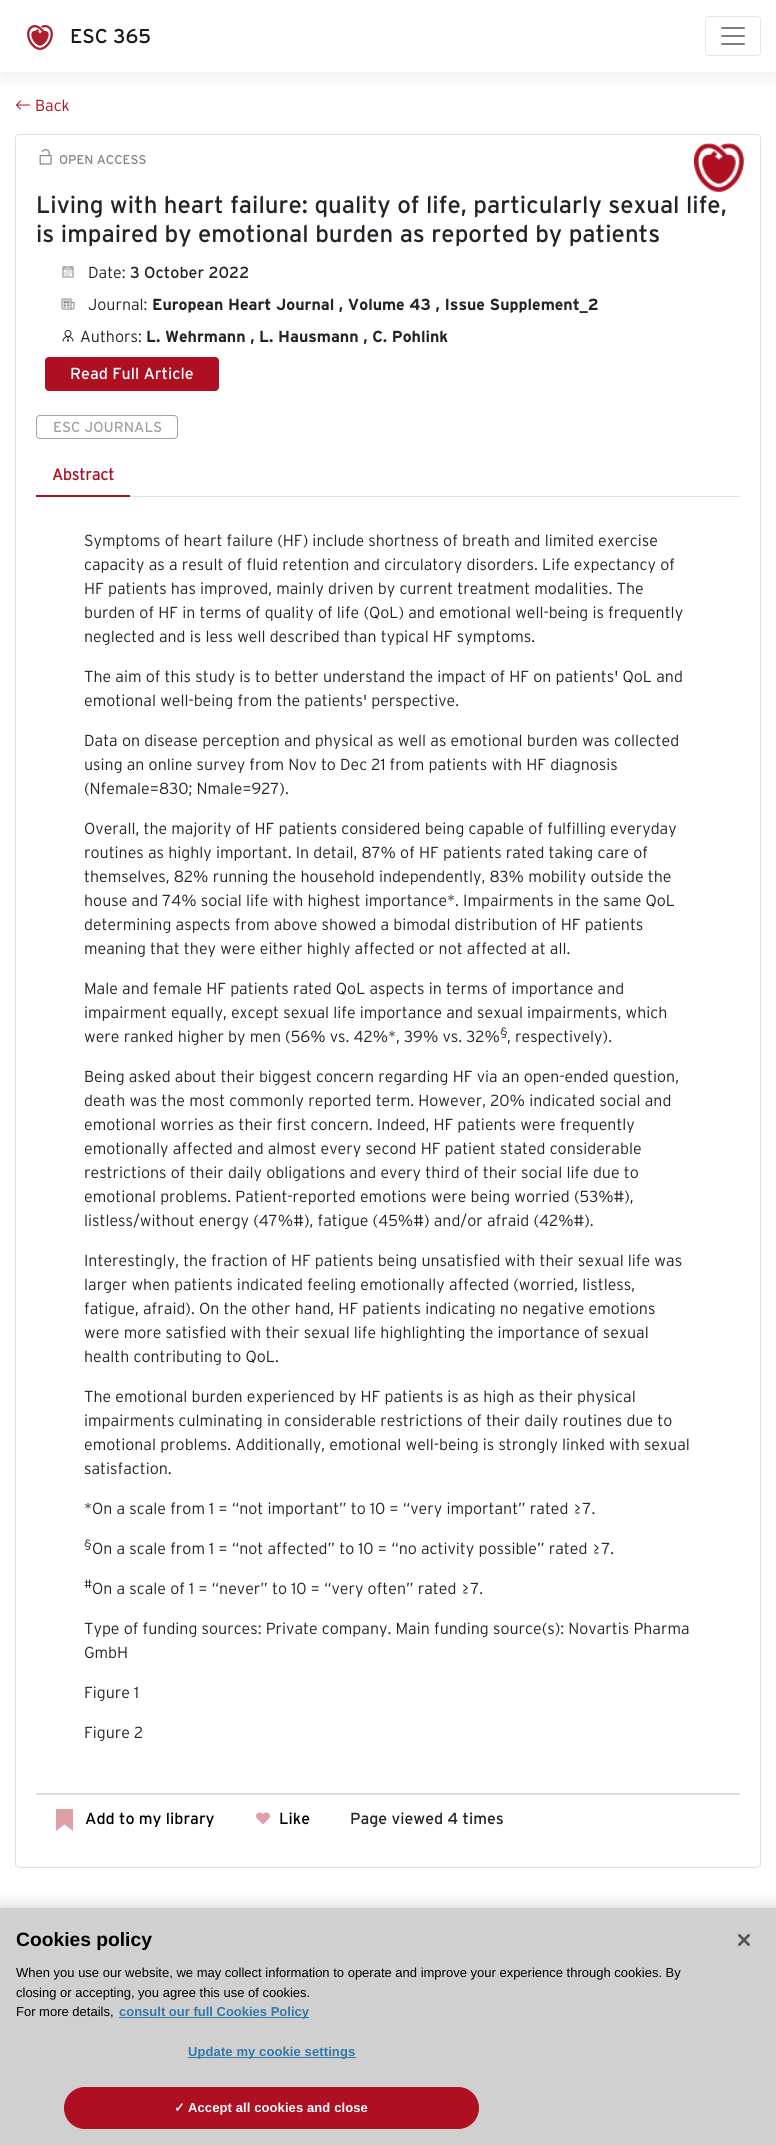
#include <cairo.h>
#include <math.h>
#include <stddef.h>


static void spaced_text(cairo_t *cr, double x, double y, const char *s, double letter, double word) {
    cairo_move_to(cr, x, y);
    while (*s) {
        char ch[5] = {0};
        int n = 0;
        do ch[n++] = *s++; while ((*s & 0xC0) == 0x80);
        cairo_show_text(cr, ch);
        cairo_rel_move_to(cr, letter + word * (*ch == ' '), 0);
    }
}

static void round_rect(cairo_t *cr, double x, double y, double w, double h, double r) {
    cairo_new_sub_path(cr);
    cairo_arc(cr, x + w - r, y + h - r, r, 0, M_PI / 2);
    cairo_arc(cr, x + r, y + h - r, r, M_PI / 2, M_PI);
    cairo_arc(cr, x + r, y + r, r, M_PI, 1.5 * M_PI);
    cairo_arc(cr, x + w - r, y + r, r, 1.5 * M_PI, 2 * M_PI);
    cairo_close_path(cr);
}

static void shadow(cairo_t *cr, double x, double y, double w, double h, double r, double blur, double alpha) {
    cairo_push_group_with_content(cr, CAIRO_CONTENT_ALPHA);
    cairo_set_operator(cr, CAIRO_OPERATOR_SOURCE);
    for (int i = 15; i >= -15 && fmin(w, h) + blur * i / 3 > 0; i -= 2) {
        double e = blur * i / 6;
        cairo_set_source_rgba(cr, 0, 0, 0, alpha * erfc((i - 1) / 8.5) / 2);
        round_rect(cr, x - e, y - e, w + 2 * e, h + 2 * e, fmax(0, fmin(r + e + blur * .6, fmin(w, h) / 2 + e)));
        cairo_fill(cr);
    }
    cairo_pattern_t *soft = cairo_pop_group(cr);
    cairo_mask(cr, soft);
    cairo_pattern_destroy(soft);
}

static void picture(cairo_t *cr, const char *path, double x, double y, double w, double h) {
    cairo_surface_t *image = cairo_image_surface_create_from_png(path);
    cairo_save(cr);
    cairo_set_source_surface(cr, image, x, y);
    cairo_rectangle(cr, x, y, w, h);
    cairo_fill(cr);
    cairo_restore(cr);
    cairo_surface_destroy(image);
}

int main(void) {
    cairo_surface_t *surface = cairo_image_surface_create(CAIRO_FORMAT_RGB24, 776, 2145);
    cairo_t *cr = cairo_create(surface);
    cairo_font_options_t *options = cairo_font_options_create();
    cairo_font_options_set_hint_metrics(options, CAIRO_HINT_METRICS_OFF);
    cairo_font_options_set_hint_style(options, CAIRO_HINT_STYLE_NONE);
    cairo_set_font_options(cr, options);
    cairo_set_miter_limit(cr, 4);
    cairo_set_source_rgb(cr, 1, 1, 1);
    cairo_paint(cr);
    picture(cr, "img3.png", 16, 100, 14, 10);
    cairo_save(cr);
    cairo_rectangle(cr, 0, 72, 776, 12);
    cairo_clip(cr);
    cairo_set_source_rgb(cr, 0, 0, 0);
    shadow(cr, 0, 8, 776, 72, 0, 10, 0.06);
    cairo_restore(cr);
    picture(cr, "img1.png", 27, 25, 26, 25);
    cairo_select_font_face(cr, "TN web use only", CAIRO_FONT_SLANT_NORMAL, CAIRO_FONT_WEIGHT_NORMAL);
    cairo_set_font_size(cr, 20);
    cairo_set_source_rgb(cr, 0.102, 0.102, 0.102);
    cairo_move_to(cr, 70, 43);
    cairo_show_text(cr, "ESC 365");
    round_rect(cr, 705.5, 16.5, 55, 39, 3.5);
    cairo_set_source_rgb(cr, 0.902, 0.902, 0.902);
    cairo_set_line_width(cr, 1);
    cairo_stroke(cr);
    picture(cr, "img2.png", 721, 27, 24, 18);
    cairo_select_font_face(cr, "TN web use only Light", CAIRO_FONT_SLANT_NORMAL, CAIRO_FONT_WEIGHT_NORMAL);
    cairo_set_font_size(cr, 16);
    cairo_set_source_rgb(cr, 0.682, 0.063, 0.133);
    cairo_move_to(cr, 35, 111);
    cairo_show_text(cr, "Back");
    round_rect(cr, 15.5, 134.5, 745, 1733, 3.5);
    cairo_set_source_rgb(cr, 0.875, 0.875, 0.875);
    cairo_stroke(cr);
    cairo_set_source_rgb(cr, 1, 1, 1);
    cairo_new_path(cr);
    cairo_move_to(cr, 19, 135);
    cairo_line_to(cr, 757, 135);
    cairo_curve_to(cr, 758.5, 135, 760, 136.5, 760, 138);
    cairo_line_to(cr, 760, 171);
    cairo_line_to(cr, 16, 171);
    cairo_line_to(cr, 16, 138);
    cairo_curve_to(cr, 16, 136.5, 17.5, 135, 19, 135);
    cairo_close_path(cr);
    cairo_fill(cr);
    picture(cr, "img4.png", 39, 149, 13, 16);
    cairo_select_font_face(cr, "TN web use only", CAIRO_FONT_SLANT_NORMAL, CAIRO_FONT_WEIGHT_NORMAL);
    cairo_set_font_size(cr, 12.75);
    cairo_set_source_rgb(cr, 0.522, 0.522, 0.522);
    cairo_move_to(cr, 59, 164);
    cairo_show_text(cr, "OPEN ACCESS");
    picture(cr, "img5.png", 694, 143, 50, 49);
    cairo_set_font_size(cr, 24);
    cairo_set_source_rgb(cr, 0.129, 0.145, 0.161);
    cairo_move_to(cr, 36, 213);
    cairo_show_text(cr, "Living with heart failure: quality of life, particularly sexual life,");
    cairo_move_to(cr, 36, 242);
    cairo_show_text(cr, "is impaired by emotional burden as reported by patients");
    picture(cr, "img6.png", 62, 266, 12, 12);
    cairo_select_font_face(cr, "TN web use only Light", CAIRO_FONT_SLANT_NORMAL, CAIRO_FONT_WEIGHT_NORMAL);
    cairo_set_font_size(cr, 16);
    cairo_move_to(cr, 88, 278);
    cairo_show_text(cr, "Date:");
    cairo_select_font_face(cr, "TN web use only", CAIRO_FONT_SLANT_NORMAL, CAIRO_FONT_WEIGHT_NORMAL);
    cairo_move_to(cr, 130, 278);
    cairo_show_text(cr, "3 October 2022");
    picture(cr, "img7.png", 61, 298, 14, 12);
    cairo_select_font_face(cr, "TN web use only Light", CAIRO_FONT_SLANT_NORMAL, CAIRO_FONT_WEIGHT_NORMAL);
    cairo_move_to(cr, 88, 310);
    cairo_show_text(cr, "Journal:");
    cairo_select_font_face(cr, "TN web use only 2", CAIRO_FONT_SLANT_NORMAL, CAIRO_FONT_WEIGHT_BOLD);
    cairo_move_to(cr, 152, 310);
    cairo_show_text(cr, "European Heart Journal , Volume 43 , Issue Supplement_2");
    picture(cr, "img8.png", 62, 330, 12, 12);
    cairo_select_font_face(cr, "TN web use only Light", CAIRO_FONT_SLANT_NORMAL, CAIRO_FONT_WEIGHT_NORMAL);
    cairo_move_to(cr, 80, 342);
    cairo_show_text(cr, "Authors:");
    cairo_select_font_face(cr, "TN web use only 2", CAIRO_FONT_SLANT_NORMAL, CAIRO_FONT_WEIGHT_BOLD);
    cairo_move_to(cr, 146, 342);
    cairo_show_text(cr, "L. Wehrmann , L. Hausmann , C. Pohlink");
    cairo_set_source_rgb(cr, 0.682, 0.063, 0.133);
    round_rect(cr, 45.5, 357.5, 173, 33, 3.5);
    cairo_fill_preserve(cr);
    cairo_stroke(cr);
    cairo_select_font_face(cr, "TN web use only", CAIRO_FONT_SLANT_NORMAL, CAIRO_FONT_WEIGHT_NORMAL);
    cairo_set_source_rgb(cr, 1, 1, 1);
    cairo_move_to(cr, 70, 379);
    cairo_show_text(cr, "Read Full Article");
    round_rect(cr, 36.5, 415.5, 141, 23, 3.5);
    cairo_set_source_rgb(cr, 0.639, 0.639, 0.639);
    cairo_stroke(cr);
    cairo_set_font_size(cr, 14.5);
    cairo_move_to(cr, 53, 432);
    cairo_show_text(cr, "ESC JOURNALS");
    cairo_set_source_rgb(cr, 0.871, 0.886, 0.902);
    cairo_rectangle(cr, 130, 496, 610, 1);
    cairo_fill(cr);
    cairo_set_source_rgb(cr, 0.682, 0.063, 0.133);
    cairo_rectangle(cr, 36, 495, 94, 2);
    cairo_fill(cr);
    cairo_select_font_face(cr, "TN web use only", CAIRO_FONT_SLANT_NORMAL, CAIRO_FONT_WEIGHT_BOLD);
    cairo_set_font_size(cr, 16);
    cairo_move_to(cr, 52, 480);
    cairo_show_text(cr, "Abstract");
    cairo_select_font_face(cr, "TN web use only Light", CAIRO_FONT_SLANT_NORMAL, CAIRO_FONT_WEIGHT_NORMAL);
    cairo_set_source_rgb(cr, 0.129, 0.145, 0.161);
    cairo_move_to(cr, 84, 546);
    cairo_show_text(cr, "Symptoms of heart failure (HF) include shortness of breath and limited exercise");
    cairo_move_to(cr, 84, 570);
    cairo_show_text(cr, "capacity as a result of fluid retention and circulatory disorders. Life expectancy of");
    cairo_move_to(cr, 84, 594);
    cairo_show_text(cr, "HF patients has improved, mainly driven by current treatment modalities. The");
    cairo_move_to(cr, 84, 618);
    cairo_show_text(cr, "burden of HF in terms of quality of life (QoL) and emotional well-being is frequently");
    cairo_move_to(cr, 84, 642);
    cairo_show_text(cr, "neglected and is less well described than typical HF symptoms.");
    cairo_move_to(cr, 84, 682);
    cairo_show_text(cr, "The aim of this study is to better understand the impact of HF on patients' QoL and");
    cairo_move_to(cr, 84, 706);
    cairo_show_text(cr, "emotional well-being from the patients' perspective.");
    cairo_move_to(cr, 84, 746);
    cairo_show_text(cr, "Data on disease perception and physical as well as emotional burden was collected");
    cairo_move_to(cr, 84, 770);
    cairo_show_text(cr, "using an online survey from Nov to Dec 21 from patients with HF diagnosis");
    cairo_move_to(cr, 84, 794);
    cairo_show_text(cr, "(Nfemale=830; Nmale=927).");
    cairo_move_to(cr, 84, 834);
    cairo_show_text(cr, "Overall, the majority of HF patients considered being capable of fulfilling everyday");
    cairo_move_to(cr, 84, 858);
    cairo_show_text(cr, "routines as highly important. In detail, 87% of HF patients rated taking care of");
    cairo_move_to(cr, 84, 882);
    cairo_show_text(cr, "themselves, 82% running the household independently, 83% mobility outside the");
    cairo_move_to(cr, 84, 906);
    cairo_show_text(cr, "house and 74% social life with highest importance*. Impairments in the same QoL");
    cairo_move_to(cr, 84, 930);
    cairo_show_text(cr, "determining aspects from above showed a bimodal distribution of HF patients");
    cairo_move_to(cr, 84, 954);
    cairo_show_text(cr, "meaning that they were either highly affected or not affected at all.");
    cairo_move_to(cr, 84, 994);
    cairo_show_text(cr, "Male and female HF patients rated QoL aspects in terms of importance and");
    cairo_move_to(cr, 84, 1018);
    cairo_show_text(cr, "impairment equally, except sexual life importance and sexual impairments, which");
    cairo_move_to(cr, 84, 1042);
    cairo_show_text(cr, "were ranked higher by men (56% vs. 42%*, 39% vs. 32%");
    cairo_set_font_size(cr, 12);
    cairo_move_to(cr, 500, 1036);
    cairo_show_text(cr, "§");
    cairo_set_font_size(cr, 16);
    cairo_move_to(cr, 507, 1042);
    cairo_show_text(cr, ", respectively).");
    cairo_move_to(cr, 84, 1082);
    cairo_show_text(cr, "Being asked about their biggest concern regarding HF via an open-ended question,");
    cairo_move_to(cr, 84, 1106);
    cairo_show_text(cr, "death was the most commonly reported term. However, 20% indicated social and");
    cairo_move_to(cr, 84, 1130);
    cairo_show_text(cr, "emotional worries as their first concern. Indeed, HF patients were frequently");
    cairo_move_to(cr, 84, 1154);
    cairo_show_text(cr, "emotionally affected and almost every second HF patient stated considerable");
    cairo_move_to(cr, 84, 1178);
    cairo_show_text(cr, "restrictions of their daily obligations and every third of their social life due to");
    cairo_move_to(cr, 84, 1202);
    cairo_show_text(cr, "emotional problems. Patient-reported emotions were being worried (53%#),");
    cairo_move_to(cr, 84, 1226);
    cairo_show_text(cr, "listless/without energy (47%#), fatigue (45%#) and/or afraid (42%#).");
    cairo_move_to(cr, 84, 1266);
    cairo_show_text(cr, "Interestingly, the fraction of HF patients being unsatisfied with their sexual life was");
    cairo_move_to(cr, 84, 1290);
    cairo_show_text(cr, "larger when patients indicated feeling emotionally affected (worried, listless,");
    cairo_move_to(cr, 84, 1314);
    cairo_show_text(cr, "fatigue, afraid). On the other hand, HF patients indicating no negative emotions");
    cairo_move_to(cr, 84, 1338);
    cairo_show_text(cr, "were more satisfied with their sexual life highlighting the importance of sexual");
    cairo_move_to(cr, 84, 1362);
    cairo_show_text(cr, "health contributing to QoL.");
    cairo_move_to(cr, 84, 1402);
    cairo_show_text(cr, "The emotional burden experienced by HF patients is as high as their physical");
    cairo_move_to(cr, 84, 1426);
    cairo_show_text(cr, "impairments culminating in considerable restrictions of their daily routines due to");
    cairo_move_to(cr, 84, 1450);
    cairo_show_text(cr, "emotional problems. Additionally, emotional well-being is strongly linked with sexual");
    cairo_move_to(cr, 84, 1474);
    cairo_show_text(cr, "satisfaction.");
    cairo_move_to(cr, 84, 1514);
    cairo_show_text(cr, "*On a scale from 1 = “not important” to 10 = “very important” rated ≥7.");
    cairo_set_font_size(cr, 12);
    cairo_move_to(cr, 84, 1548);
    cairo_show_text(cr, "§");
    cairo_set_font_size(cr, 16);
    cairo_move_to(cr, 92, 1554);
    cairo_show_text(cr, "On a scale from 1 = “not affected” to 10 = “no activity possible” rated ≥7.");
    cairo_set_font_size(cr, 12);
    cairo_move_to(cr, 84, 1588);
    cairo_show_text(cr, "#");
    cairo_set_font_size(cr, 16);
    cairo_move_to(cr, 92, 1594);
    cairo_show_text(cr, "On a scale of 1 = “never” to 10 = “very often” rated ≥7.");
    cairo_move_to(cr, 84, 1634);
    cairo_show_text(cr, "Type of funding sources: Private company. Main funding source(s): Novartis Pharma");
    cairo_move_to(cr, 84, 1658);
    cairo_show_text(cr, "GmbH");
    cairo_move_to(cr, 84, 1698);
    cairo_show_text(cr, "Figure 1");
    cairo_move_to(cr, 84, 1738);
    cairo_show_text(cr, "Figure 2");
    cairo_set_source_rgb(cr, 0.875, 0.875, 0.875);
    cairo_rectangle(cr, 36, 1793, 704, 2);
    cairo_fill(cr);
    cairo_set_source_rgb(cr, 0.875, 0.624, 0.655);
    cairo_new_path(cr);
    cairo_move_to(cr, 56, 1809);
    cairo_line_to(cr, 56, 1831);
    cairo_line_to(cr, 64.5, 1824.5);
    cairo_line_to(cr, 73, 1831);
    cairo_line_to(cr, 73, 1809);
    cairo_close_path(cr);
    cairo_fill(cr);
    cairo_select_font_face(cr, "TN web use only", CAIRO_FONT_SLANT_NORMAL, CAIRO_FONT_WEIGHT_NORMAL);
    cairo_set_source_rgb(cr, 0, 0, 0);
    cairo_move_to(cr, 85, 1824);
    cairo_show_text(cr, "Add to my library");
    picture(cr, "img9.png", 256, 1812, 14, 13);
    cairo_move_to(cr, 279, 1824);
    cairo_show_text(cr, "Like");
    cairo_set_source_rgb(cr, 0.129, 0.145, 0.161);
    cairo_move_to(cr, 350, 1824);
    cairo_show_text(cr, "Page viewed 4 times");
    cairo_set_source_rgb(cr, 0, 0, 0);
    shadow(cr, 0, 1908, 776, 237, 0, 9, 0.2);
    cairo_set_source_rgb(cr, 0.816, 0.816, 0.816);
    cairo_rectangle(cr, 0, 1908, 776, 237);
    cairo_fill(cr);
    cairo_select_font_face(cr, "Liberation Sans", CAIRO_FONT_SLANT_NORMAL, CAIRO_FONT_WEIGHT_BOLD);
    cairo_set_font_size(cr, 19.25);
    cairo_set_source_rgb(cr, 0, 0, 0);
    cairo_move_to(cr, 16, 1946);
    cairo_show_text(cr, "Cookies policy");
    cairo_select_font_face(cr, "Liberation Sans", CAIRO_FONT_SLANT_NORMAL, CAIRO_FONT_WEIGHT_NORMAL);
    cairo_set_font_size(cr, 13);
    cairo_move_to(cr, 16, 1977);
    cairo_show_text(cr, "When you use our website, we may collect information to operate and improve your experience through cookies. By");
    cairo_move_to(cr, 16, 1997);
    cairo_show_text(cr, "closing or accepting, you agree this use of cookies.");
    cairo_move_to(cr, 16, 2016);
    cairo_show_text(cr, "For more details,");
    cairo_set_source_rgb(cr, 0.2, 0.471, 0.663);
    cairo_rectangle(cr, 119, 2017, 190, 1);
    cairo_fill(cr);
    cairo_select_font_face(cr, "Liberation Sans", CAIRO_FONT_SLANT_NORMAL, CAIRO_FONT_WEIGHT_BOLD);
    cairo_move_to(cr, 119, 2016);
    cairo_show_text(cr, "consult our full Cookies Policy");
    cairo_rectangle(cr, 188, 2057, 168, 1);
    cairo_fill(cr);
    spaced_text(cr, 188, 2056, "Update my cookie settings", 0.1, 0);
    cairo_set_source_rgb(cr, 0.682, 0.063, 0.133);
    round_rect(cr, 64.5, 2087.5, 414, 41, 20.5);
    cairo_fill_preserve(cr);
    cairo_stroke(cr);
    cairo_select_font_face(cr, "DejaVu Sans", CAIRO_FONT_SLANT_NORMAL, CAIRO_FONT_WEIGHT_BOLD);
    cairo_set_source_rgb(cr, 1, 1, 1);
    spaced_text(cr, 174, 2112, "✓", 0.1, 0);
    cairo_select_font_face(cr, "Liberation Sans", CAIRO_FONT_SLANT_NORMAL, CAIRO_FONT_WEIGHT_BOLD);
    spaced_text(cr, 188, 2112, "Accept all cookies and close", 0.1, 0);
    picture(cr, "img10.png", 738, 1934, 12, 12);
    cairo_surface_write_to_png(surface, "page.png");
    cairo_font_options_destroy(options);
    cairo_destroy(cr);
    cairo_surface_destroy(surface);
    return 0;
}
